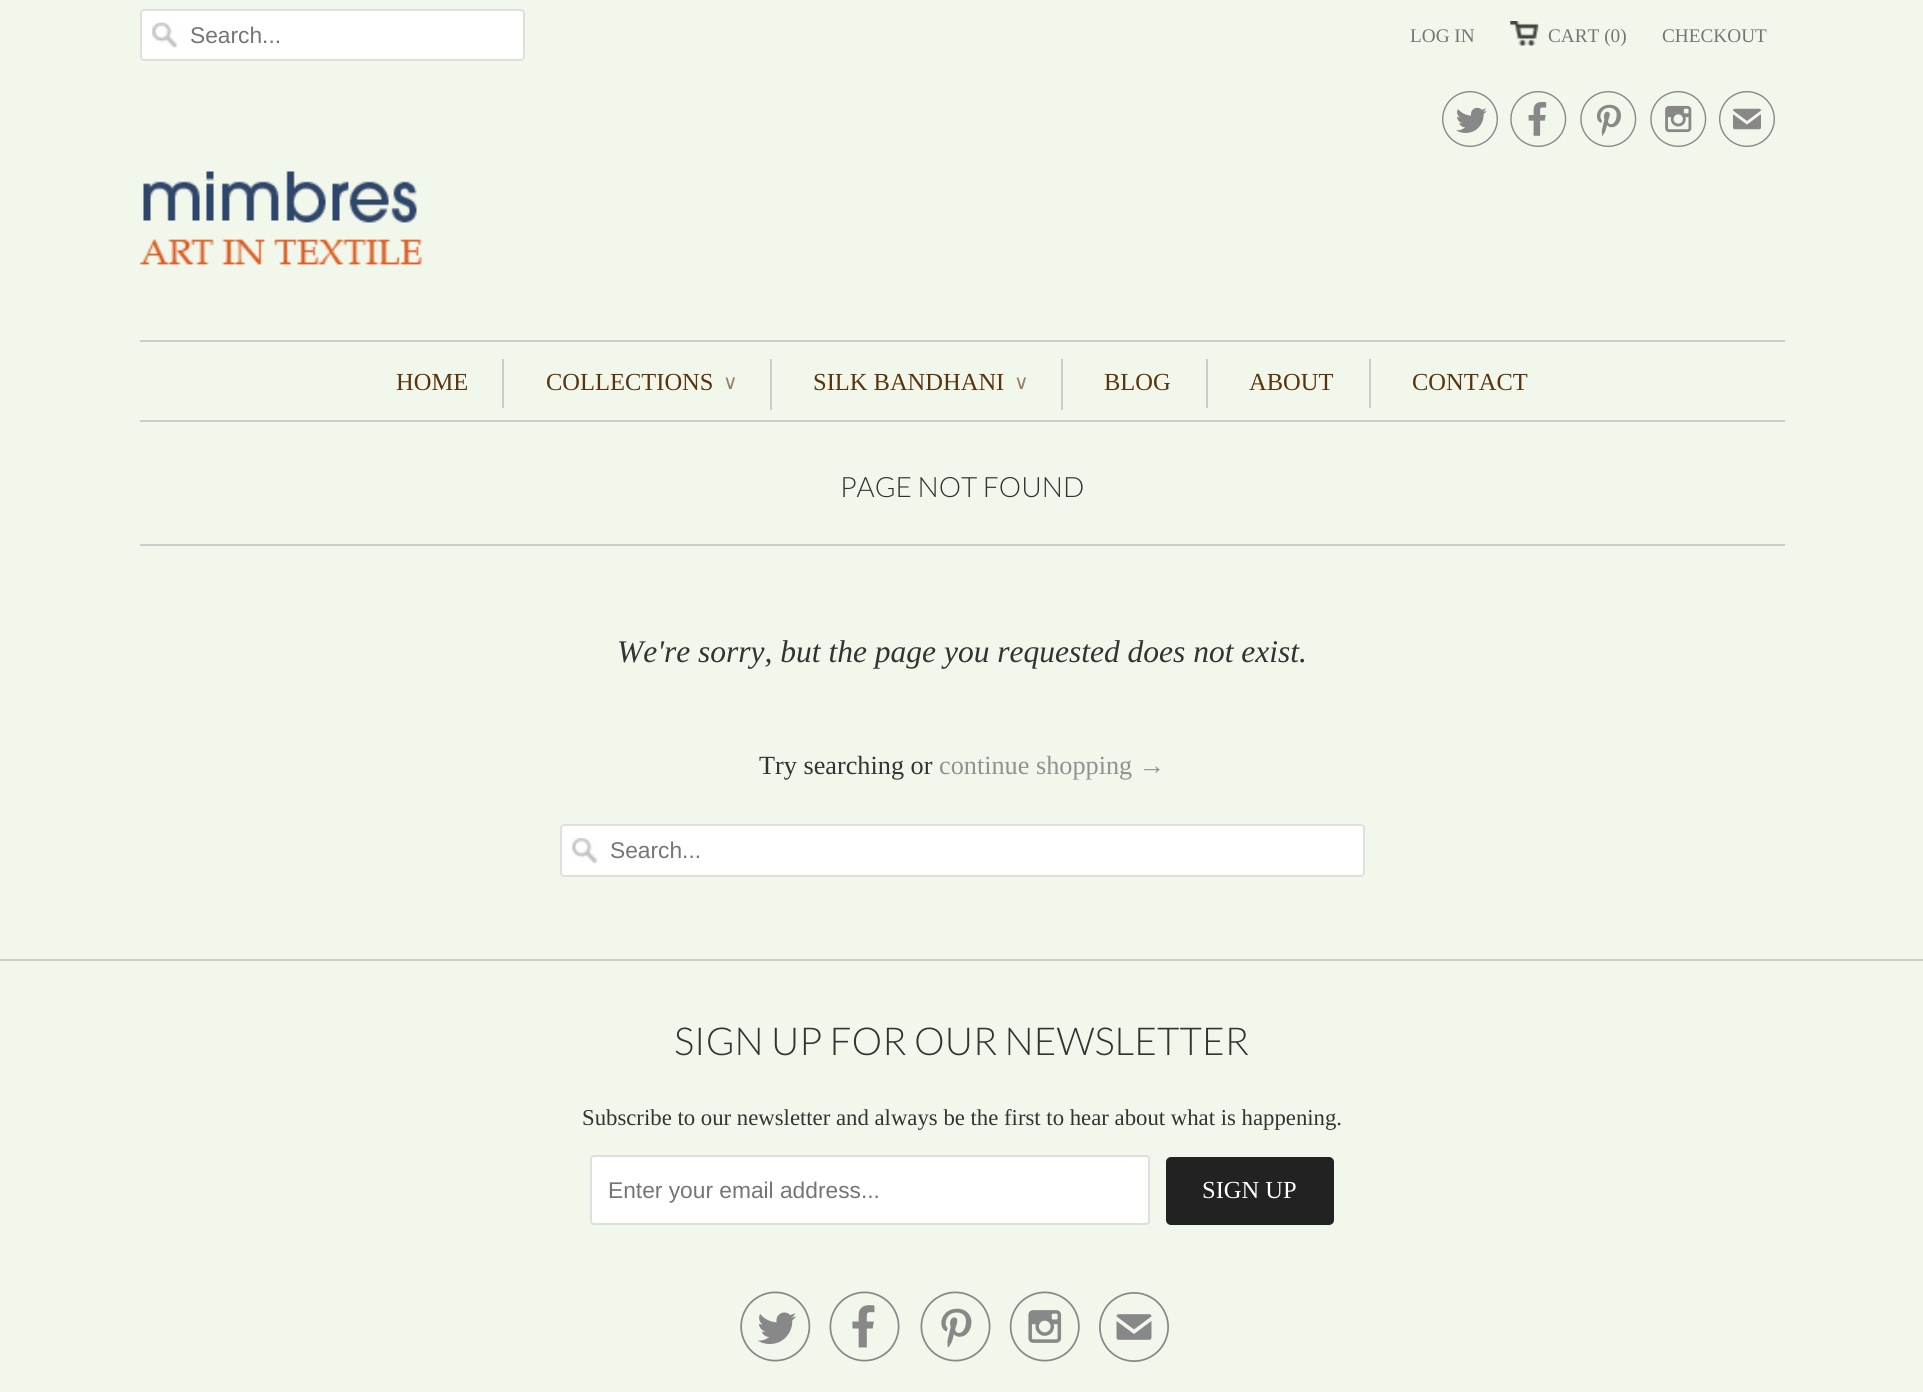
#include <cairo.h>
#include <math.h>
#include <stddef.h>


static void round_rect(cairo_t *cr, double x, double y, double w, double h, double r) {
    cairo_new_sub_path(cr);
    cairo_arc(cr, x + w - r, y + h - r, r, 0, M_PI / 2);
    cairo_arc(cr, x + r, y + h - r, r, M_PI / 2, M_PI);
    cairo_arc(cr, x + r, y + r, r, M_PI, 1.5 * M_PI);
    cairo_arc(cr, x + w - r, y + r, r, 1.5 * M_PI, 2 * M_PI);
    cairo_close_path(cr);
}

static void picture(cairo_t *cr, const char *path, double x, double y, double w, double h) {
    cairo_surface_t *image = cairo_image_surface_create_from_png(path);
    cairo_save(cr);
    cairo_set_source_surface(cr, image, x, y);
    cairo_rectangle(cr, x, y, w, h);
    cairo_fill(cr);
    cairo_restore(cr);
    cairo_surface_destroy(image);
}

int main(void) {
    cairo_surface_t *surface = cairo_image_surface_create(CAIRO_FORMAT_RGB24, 1923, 1392);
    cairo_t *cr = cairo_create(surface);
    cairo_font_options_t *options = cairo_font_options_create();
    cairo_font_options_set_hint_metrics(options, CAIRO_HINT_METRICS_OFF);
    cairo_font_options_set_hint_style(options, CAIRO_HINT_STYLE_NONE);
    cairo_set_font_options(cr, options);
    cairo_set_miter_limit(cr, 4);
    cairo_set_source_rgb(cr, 0.949, 0.965, 0.918);
    cairo_paint(cr);
    cairo_set_source_rgb(cr, 1, 1, 1);
    round_rect(cr, 140, 9, 385, 52, 4);
    cairo_fill(cr);
    picture(cr, "img1.png", 152, 22, 25, 26);
    round_rect(cr, 141, 10, 383, 50, 3);
    cairo_set_source_rgb(cr, 0.875, 0.875, 0.875);
    cairo_stroke(cr);
    cairo_select_font_face(cr, "Liberation Sans", CAIRO_FONT_SLANT_NORMAL, CAIRO_FONT_WEIGHT_NORMAL);
    cairo_set_font_size(cr, 22.75);
    cairo_set_source_rgb(cr, 0.459, 0.459, 0.459);
    cairo_move_to(cr, 190, 43);
    cairo_show_text(cr, "Search...");
    cairo_select_font_face(cr, "Liberation Serif", CAIRO_FONT_SLANT_NORMAL, CAIRO_FONT_WEIGHT_NORMAL);
    cairo_set_font_size(cr, 19.25);
    cairo_move_to(cr, 1410, 42);
    cairo_show_text(cr, "LOG IN");
    picture(cr, "img2.png", 1510, 21, 29, 25);
    cairo_move_to(cr, 1548, 42);
    cairo_show_text(cr, "CART (0)");
    cairo_move_to(cr, 1662, 42);
    cairo_show_text(cr, "CHECKOUT");
    picture(cr, "img3.png", 1442, 91, 56, 56);
    picture(cr, "img4.png", 1510, 91, 57, 56);
    picture(cr, "img5.png", 1580, 91, 57, 56);
    picture(cr, "img6.png", 1650, 91, 57, 56);
    cairo_select_font_face(cr, "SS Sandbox", CAIRO_FONT_SLANT_NORMAL, CAIRO_FONT_WEIGHT_NORMAL);
    cairo_set_font_size(cr, 56);
    cairo_set_source_rgb(cr, 0.533, 0.533, 0.533);
    cairo_move_to(cr, 1719, 147);
    cairo_show_text(cr, "✉");
    picture(cr, "img7.png", 140, 171, 282, 94);
    cairo_set_source_rgb(cr, 0.8, 0.8, 0.8);
    cairo_rectangle(cr, 140, 340, 1645, 2);
    cairo_fill(cr);
    cairo_rectangle(cr, 140, 420, 1645, 2);
    cairo_fill(cr);
    cairo_rectangle(cr, 502, 359, 2, 49);
    cairo_fill(cr);
    cairo_select_font_face(cr, "Liberation Serif", CAIRO_FONT_SLANT_NORMAL, CAIRO_FONT_WEIGHT_NORMAL);
    cairo_set_font_size(cr, 24.5);
    cairo_set_source_rgb(cr, 0.349, 0.204, 0.055);
    cairo_move_to(cr, 396, 390);
    cairo_show_text(cr, "HOME");
    cairo_set_source_rgb(cr, 0.8, 0.8, 0.8);
    cairo_rectangle(cr, 770, 359, 2, 51);
    cairo_fill(cr);
    cairo_set_source_rgb(cr, 0.349, 0.204, 0.055);
    cairo_move_to(cr, 546, 390);
    cairo_show_text(cr, "COLLECTIONS");
    cairo_select_font_face(cr, "DejaVu Sans", CAIRO_FONT_SLANT_NORMAL, CAIRO_FONT_WEIGHT_NORMAL);
    cairo_set_font_size(cr, 20);
    cairo_set_source_rgb(cr, 0.588, 0.51, 0.4);
    cairo_move_to(cr, 723, 389);
    cairo_show_text(cr, "∨");
    cairo_set_source_rgb(cr, 0.8, 0.8, 0.8);
    cairo_rectangle(cr, 1061, 359, 2, 51);
    cairo_fill(cr);
    cairo_select_font_face(cr, "Liberation Serif", CAIRO_FONT_SLANT_NORMAL, CAIRO_FONT_WEIGHT_NORMAL);
    cairo_set_font_size(cr, 24.5);
    cairo_set_source_rgb(cr, 0.349, 0.204, 0.055);
    cairo_move_to(cr, 813, 390);
    cairo_show_text(cr, "SILK BANDHANI");
    cairo_select_font_face(cr, "DejaVu Sans", CAIRO_FONT_SLANT_NORMAL, CAIRO_FONT_WEIGHT_NORMAL);
    cairo_set_font_size(cr, 20);
    cairo_set_source_rgb(cr, 0.588, 0.51, 0.4);
    cairo_move_to(cr, 1014, 389);
    cairo_show_text(cr, "∨");
    cairo_set_source_rgb(cr, 0.8, 0.8, 0.8);
    cairo_rectangle(cr, 1206, 359, 2, 49);
    cairo_fill(cr);
    cairo_select_font_face(cr, "Liberation Serif", CAIRO_FONT_SLANT_NORMAL, CAIRO_FONT_WEIGHT_NORMAL);
    cairo_set_font_size(cr, 24.5);
    cairo_set_source_rgb(cr, 0.349, 0.204, 0.055);
    cairo_move_to(cr, 1104, 390);
    cairo_show_text(cr, "BLOG");
    cairo_set_source_rgb(cr, 0.8, 0.8, 0.8);
    cairo_rectangle(cr, 1369, 359, 2, 49);
    cairo_fill(cr);
    cairo_set_source_rgb(cr, 0.349, 0.204, 0.055);
    cairo_move_to(cr, 1249, 390);
    cairo_show_text(cr, "ABOUT");
    cairo_move_to(cr, 1412, 390);
    cairo_show_text(cr, "CONTACT");
    cairo_set_source_rgb(cr, 0.8, 0.8, 0.8);
    cairo_rectangle(cr, 140, 544, 1645, 2);
    cairo_fill(cr);
    cairo_select_font_face(cr, "Lato Light", CAIRO_FONT_SLANT_NORMAL, CAIRO_FONT_WEIGHT_NORMAL);
    cairo_set_font_size(cr, 28);
    cairo_set_source_rgb(cr, 0.2, 0.2, 0.2);
    cairo_move_to(cr, 840, 497);
    cairo_show_text(cr, "PAGE NOT FOUND");
    cairo_select_font_face(cr, "Liberation Serif", CAIRO_FONT_SLANT_ITALIC, CAIRO_FONT_WEIGHT_NORMAL);
    cairo_set_font_size(cr, 31.5);
    cairo_move_to(cr, 617, 662);
    cairo_show_text(cr, "We're sorry, but the page you requested does not exist.");
    cairo_select_font_face(cr, "Liberation Serif", CAIRO_FONT_SLANT_NORMAL, CAIRO_FONT_WEIGHT_NORMAL);
    cairo_set_font_size(cr, 26.25);
    cairo_move_to(cr, 759, 774);
    cairo_show_text(cr, "Try searching or");
    cairo_set_source_rgb(cr, 0.569, 0.569, 0.569);
    cairo_move_to(cr, 939, 774);
    cairo_show_text(cr, "continue shopping →");
    cairo_set_source_rgb(cr, 1, 1, 1);
    round_rect(cr, 560, 824, 805, 53, 4);
    cairo_fill(cr);
    picture(cr, "img8.png", 572, 838, 25, 25);
    round_rect(cr, 561, 825, 803, 51, 3);
    cairo_set_source_rgb(cr, 0.875, 0.875, 0.875);
    cairo_stroke(cr);
    cairo_select_font_face(cr, "Liberation Sans", CAIRO_FONT_SLANT_NORMAL, CAIRO_FONT_WEIGHT_NORMAL);
    cairo_set_font_size(cr, 22.75);
    cairo_set_source_rgb(cr, 0.459, 0.459, 0.459);
    cairo_move_to(cr, 610, 858);
    cairo_show_text(cr, "Search...");
    cairo_set_source_rgb(cr, 0.8, 0.8, 0.8);
    cairo_rectangle(cr, 0, 959, 1923, 2);
    cairo_fill(cr);
    cairo_select_font_face(cr, "Lato Light", CAIRO_FONT_SLANT_NORMAL, CAIRO_FONT_WEIGHT_NORMAL);
    cairo_set_font_size(cr, 38.5);
    cairo_set_source_rgb(cr, 0.2, 0.2, 0.2);
    cairo_move_to(cr, 674, 1055);
    cairo_show_text(cr, "SIGN UP FOR OUR NEWSLETTER");
    cairo_select_font_face(cr, "Liberation Serif", CAIRO_FONT_SLANT_NORMAL, CAIRO_FONT_WEIGHT_NORMAL);
    cairo_set_font_size(cr, 22.75);
    cairo_move_to(cr, 582, 1125);
    cairo_show_text(cr, "Subscribe to our newsletter and always be the first to hear about what is happening.");
    cairo_set_source_rgb(cr, 1, 1, 1);
    round_rect(cr, 591, 1156, 558, 68, 3);
    cairo_fill_preserve(cr);
    cairo_set_source_rgb(cr, 0.875, 0.875, 0.875);
    cairo_stroke(cr);
    cairo_select_font_face(cr, "Liberation Sans", CAIRO_FONT_SLANT_NORMAL, CAIRO_FONT_WEIGHT_NORMAL);
    cairo_set_source_rgb(cr, 0.459, 0.459, 0.459);
    cairo_move_to(cr, 608, 1198);
    cairo_show_text(cr, "Enter your email address...");
    cairo_set_source_rgb(cr, 0.133, 0.133, 0.133);
    round_rect(cr, 1166, 1157, 168, 68, 5);
    cairo_fill(cr);
    cairo_select_font_face(cr, "Liberation Serif", CAIRO_FONT_SLANT_NORMAL, CAIRO_FONT_WEIGHT_NORMAL);
    cairo_set_font_size(cr, 24.5);
    cairo_set_source_rgb(cr, 1, 1, 1);
    cairo_move_to(cr, 1202, 1198);
    cairo_show_text(cr, "SIGN UP");
    picture(cr, "img9.png", 740, 1291, 71, 71);
    picture(cr, "img10.png", 829, 1291, 71, 71);
    picture(cr, "img11.png", 920, 1291, 71, 71);
    picture(cr, "img12.png", 1009, 1291, 71, 71);
    cairo_select_font_face(cr, "SS Sandbox", CAIRO_FONT_SLANT_NORMAL, CAIRO_FONT_WEIGHT_NORMAL);
    cairo_set_font_size(cr, 70);
    cairo_set_source_rgb(cr, 0.533, 0.533, 0.533);
    cairo_move_to(cr, 1099, 1362);
    cairo_show_text(cr, "✉");
    cairo_surface_write_to_png(surface, "page.png");
    cairo_font_options_destroy(options);
    cairo_destroy(cr);
    cairo_surface_destroy(surface);
    return 0;
}
